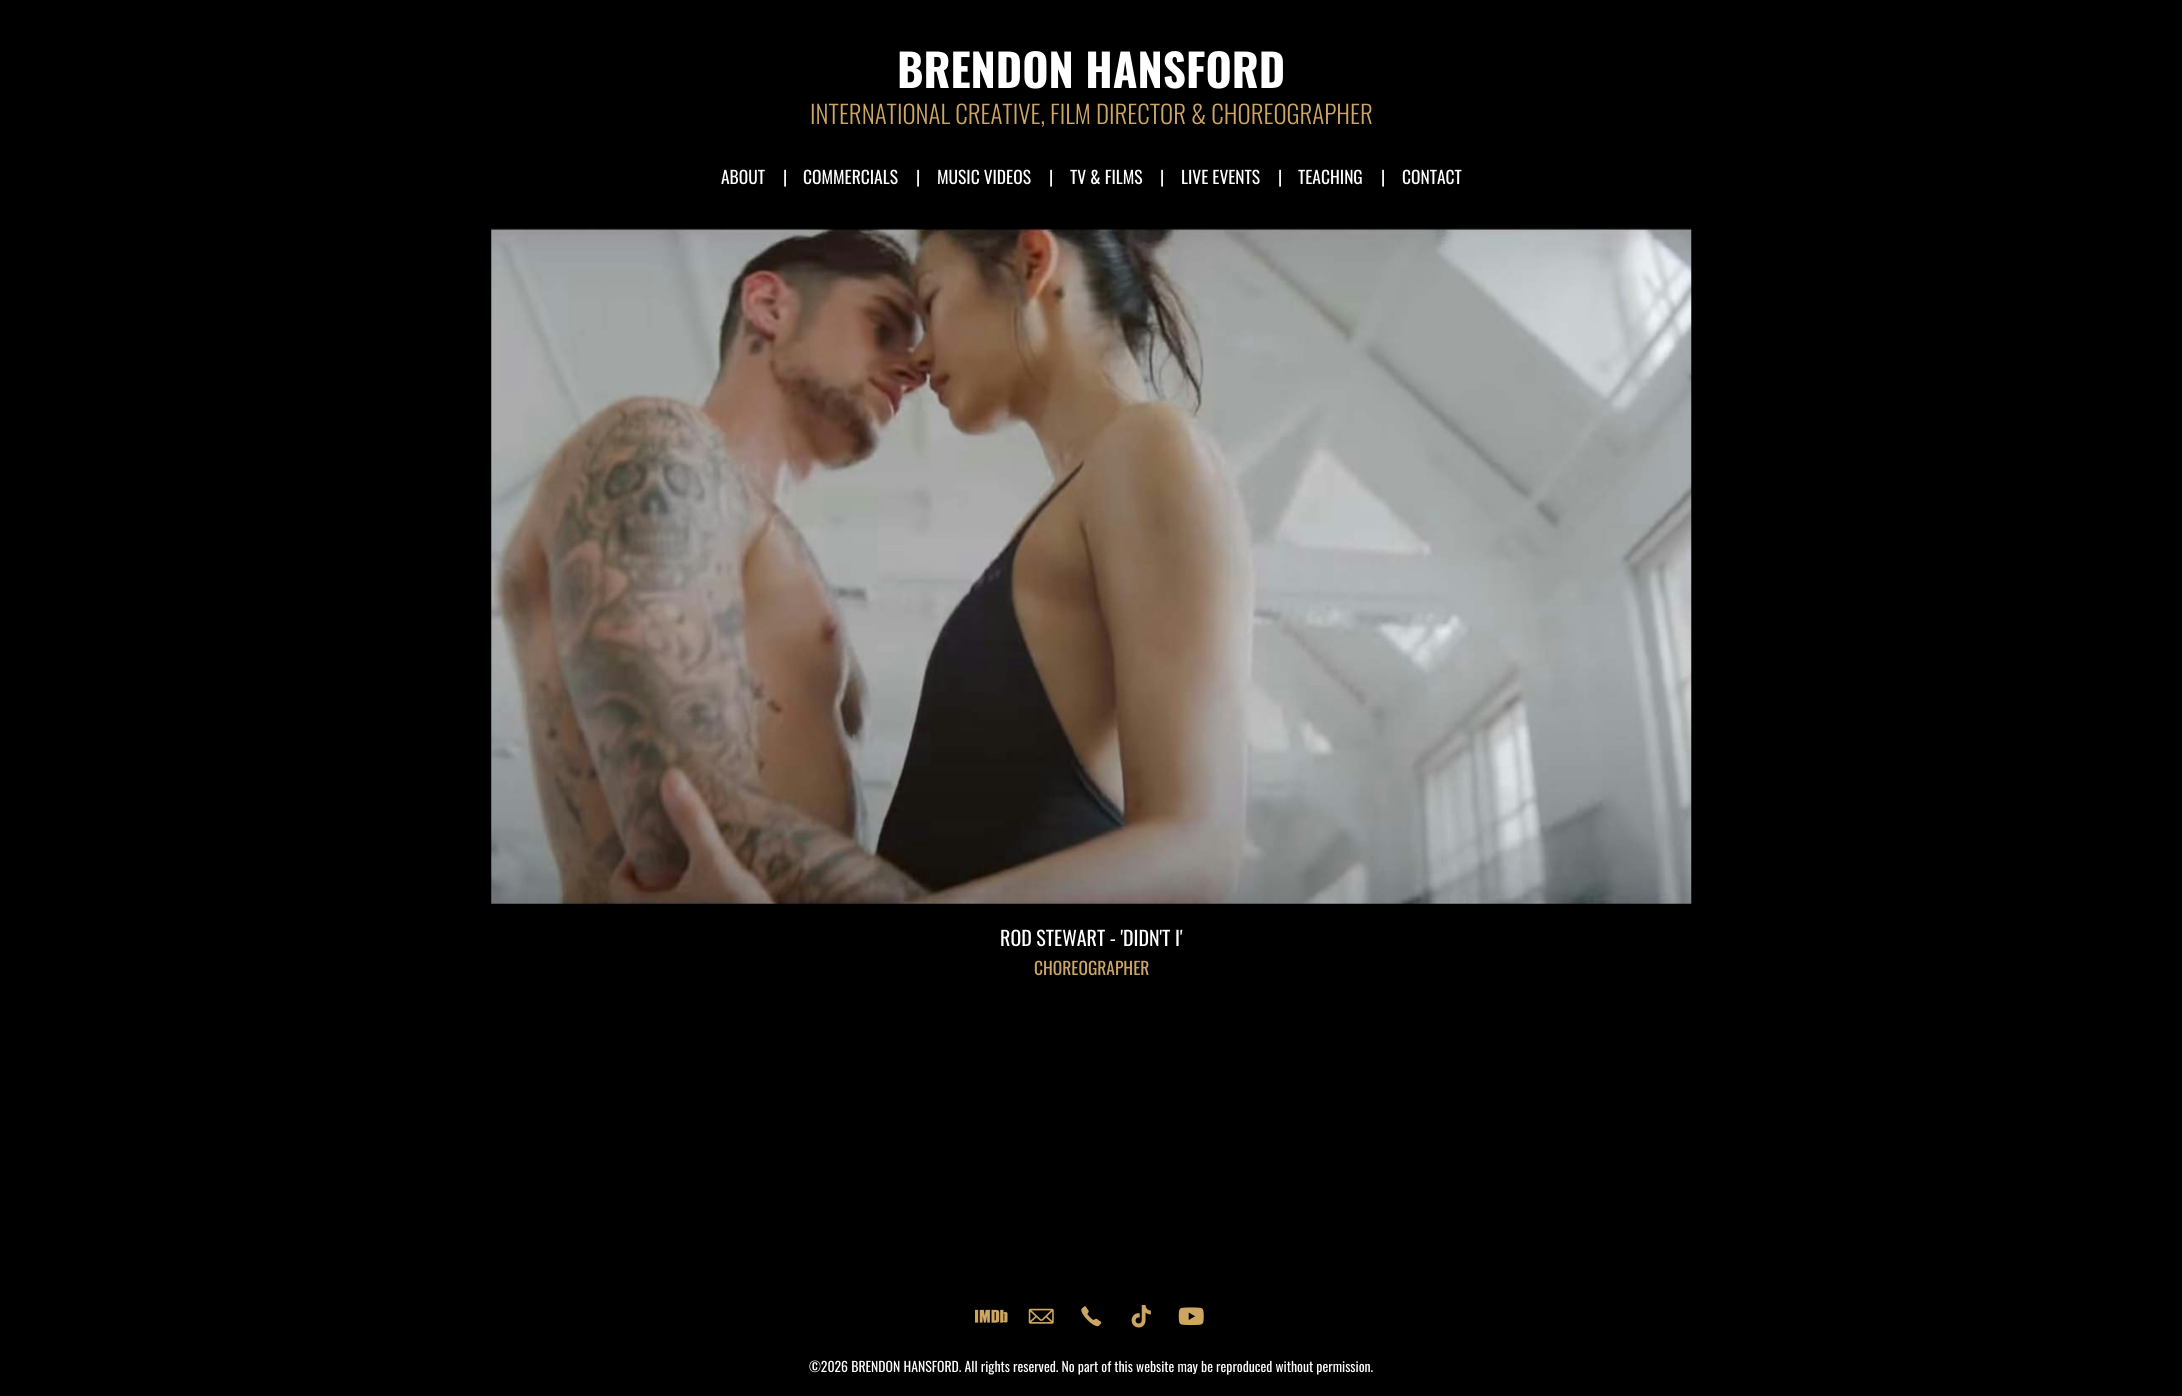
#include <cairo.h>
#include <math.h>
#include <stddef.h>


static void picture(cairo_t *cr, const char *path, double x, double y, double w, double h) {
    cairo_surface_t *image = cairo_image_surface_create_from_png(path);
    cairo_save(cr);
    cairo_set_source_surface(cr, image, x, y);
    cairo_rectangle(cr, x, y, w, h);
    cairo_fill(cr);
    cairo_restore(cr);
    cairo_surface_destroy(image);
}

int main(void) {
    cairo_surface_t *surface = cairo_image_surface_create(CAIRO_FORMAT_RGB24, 2182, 1396);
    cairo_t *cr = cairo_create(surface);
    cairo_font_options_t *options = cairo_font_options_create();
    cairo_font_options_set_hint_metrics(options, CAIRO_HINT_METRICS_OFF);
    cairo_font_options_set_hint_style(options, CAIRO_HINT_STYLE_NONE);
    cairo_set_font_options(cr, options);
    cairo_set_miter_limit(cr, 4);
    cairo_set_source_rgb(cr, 0, 0, 0);
    cairo_paint(cr);
    cairo_select_font_face(cr, "Oswald", CAIRO_FONT_SLANT_NORMAL, CAIRO_FONT_WEIGHT_BOLD);
    cairo_set_font_size(cr, 45);
    cairo_set_source_rgb(cr, 1, 1, 1);
    cairo_move_to(cr, 897, 88);
    cairo_show_text(cr, "BRENDON HANSFORD");
    cairo_select_font_face(cr, "Oswald Light", CAIRO_FONT_SLANT_NORMAL, CAIRO_FONT_WEIGHT_NORMAL);
    cairo_set_font_size(cr, 25);
    cairo_set_source_rgb(cr, 0.804, 0.651, 0.392);
    cairo_move_to(cr, 810, 124);
    cairo_show_text(cr, "INTERNATIONAL CREATIVE, FILM DIRECTOR & CHOREOGRAPHER");
    cairo_select_font_face(cr, "Oswald", CAIRO_FONT_SLANT_NORMAL, CAIRO_FONT_WEIGHT_NORMAL);
    cairo_set_font_size(cr, 17.5);
    cairo_set_source_rgb(cr, 1, 1, 1);
    cairo_move_to(cr, 721, 184);
    cairo_show_text(cr, "ABOUT");
    cairo_move_to(cr, 783, 184);
    cairo_show_text(cr, "|");
    cairo_move_to(cr, 803, 184);
    cairo_show_text(cr, "COMMERCIALS");
    cairo_move_to(cr, 916, 184);
    cairo_show_text(cr, "|");
    cairo_move_to(cr, 937, 184);
    cairo_show_text(cr, "MUSIC VIDEOS");
    cairo_move_to(cr, 1049, 184);
    cairo_show_text(cr, "|");
    cairo_move_to(cr, 1070, 184);
    cairo_show_text(cr, "TV & FILMS");
    cairo_move_to(cr, 1160, 184);
    cairo_show_text(cr, "|");
    cairo_move_to(cr, 1181, 184);
    cairo_show_text(cr, "LIVE EVENTS");
    cairo_move_to(cr, 1278, 184);
    cairo_show_text(cr, "|");
    cairo_move_to(cr, 1298, 184);
    cairo_show_text(cr, "TEACHING");
    cairo_move_to(cr, 1381, 184);
    cairo_show_text(cr, "|");
    cairo_move_to(cr, 1402, 184);
    cairo_show_text(cr, "CONTACT");
    picture(cr, "img1.png", 491, 228, 1201, 676);
    cairo_set_font_size(cr, 20);
    cairo_move_to(cr, 1000, 946);
    cairo_show_text(cr, "ROD STEWART - 'DIDN'T I'");
    cairo_set_font_size(cr, 17.5);
    cairo_set_source_rgb(cr, 0.804, 0.651, 0.392);
    cairo_move_to(cr, 1034, 975);
    cairo_show_text(cr, "CHOREOGRAPHER");
    picture(cr, "img2.png", 975, 1309, 33, 14);
    picture(cr, "img3.png", 1028, 1308, 26, 16);
    picture(cr, "img4.png", 1081, 1306, 21, 21);
    picture(cr, "img5.png", 1131, 1305, 20, 23);
    picture(cr, "img6.png", 1178, 1307, 26, 19);
    cairo_set_font_size(cr, 13.75);
    cairo_set_source_rgb(cr, 1, 1, 1);
    cairo_move_to(cr, 809, 1372);
    cairo_show_text(cr, "©2026 BRENDON HANSFORD. All rights reserved. No part of this website may be reproduced without permission.");
    cairo_surface_write_to_png(surface, "page.png");
    cairo_font_options_destroy(options);
    cairo_destroy(cr);
    cairo_surface_destroy(surface);
    return 0;
}
